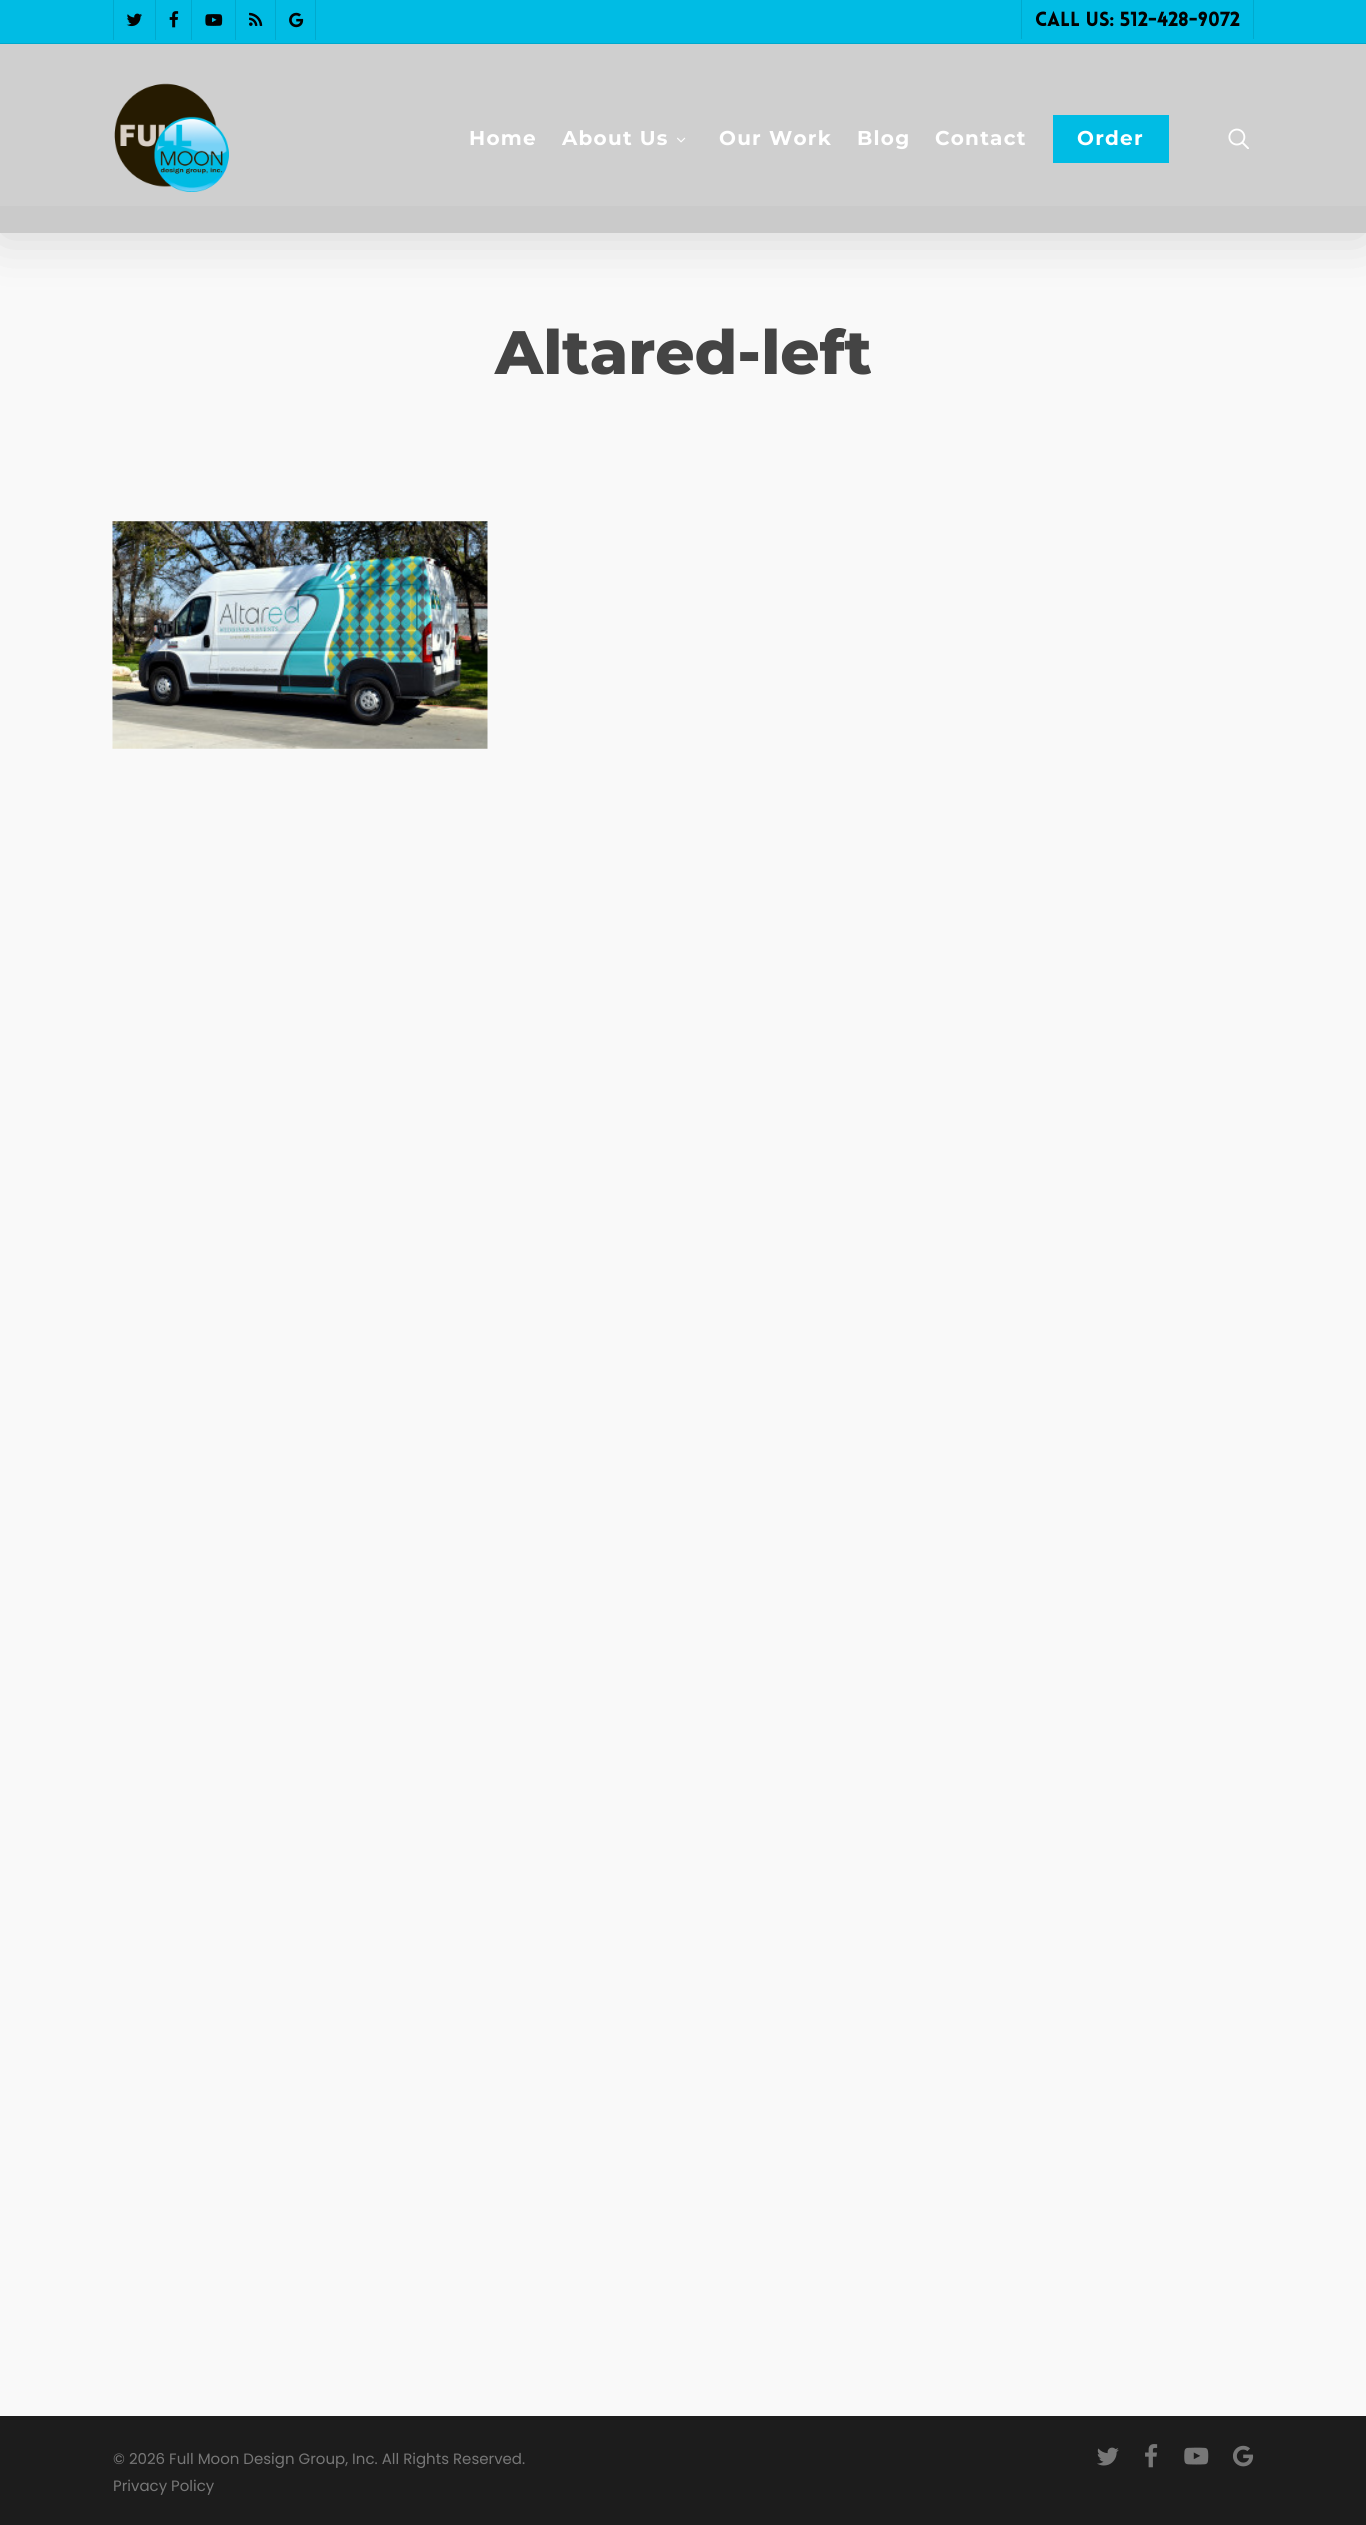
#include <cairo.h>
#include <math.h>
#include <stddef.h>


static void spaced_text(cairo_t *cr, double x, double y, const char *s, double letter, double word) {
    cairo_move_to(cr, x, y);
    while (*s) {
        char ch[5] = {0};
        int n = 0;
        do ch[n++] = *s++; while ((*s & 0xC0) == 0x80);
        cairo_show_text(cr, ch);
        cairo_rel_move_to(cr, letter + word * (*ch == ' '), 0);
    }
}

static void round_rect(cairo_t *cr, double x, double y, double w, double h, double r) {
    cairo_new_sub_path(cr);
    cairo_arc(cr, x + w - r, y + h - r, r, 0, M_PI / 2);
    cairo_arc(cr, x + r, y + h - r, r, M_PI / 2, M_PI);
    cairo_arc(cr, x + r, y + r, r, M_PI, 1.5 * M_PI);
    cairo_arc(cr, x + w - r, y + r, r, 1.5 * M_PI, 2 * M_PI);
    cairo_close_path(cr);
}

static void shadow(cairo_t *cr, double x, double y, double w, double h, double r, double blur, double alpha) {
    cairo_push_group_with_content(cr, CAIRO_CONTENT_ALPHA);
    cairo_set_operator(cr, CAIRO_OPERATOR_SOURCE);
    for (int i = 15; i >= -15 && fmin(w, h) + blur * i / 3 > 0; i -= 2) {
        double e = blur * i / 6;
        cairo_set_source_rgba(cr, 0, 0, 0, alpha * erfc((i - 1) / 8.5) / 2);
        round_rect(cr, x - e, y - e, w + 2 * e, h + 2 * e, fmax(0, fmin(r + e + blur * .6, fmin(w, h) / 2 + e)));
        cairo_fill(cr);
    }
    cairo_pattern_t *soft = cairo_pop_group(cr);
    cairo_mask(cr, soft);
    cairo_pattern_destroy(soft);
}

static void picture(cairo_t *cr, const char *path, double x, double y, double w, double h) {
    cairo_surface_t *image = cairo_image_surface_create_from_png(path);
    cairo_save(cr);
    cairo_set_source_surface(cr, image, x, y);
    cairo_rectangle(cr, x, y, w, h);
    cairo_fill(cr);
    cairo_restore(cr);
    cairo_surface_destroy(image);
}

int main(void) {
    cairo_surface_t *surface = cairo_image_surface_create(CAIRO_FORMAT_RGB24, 1366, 2525);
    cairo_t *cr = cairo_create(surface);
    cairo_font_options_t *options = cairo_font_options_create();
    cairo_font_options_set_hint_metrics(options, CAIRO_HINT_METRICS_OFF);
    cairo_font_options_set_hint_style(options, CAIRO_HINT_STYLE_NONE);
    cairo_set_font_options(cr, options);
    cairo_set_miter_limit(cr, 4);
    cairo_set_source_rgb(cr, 1, 1, 1);
    cairo_paint(cr);
    cairo_set_source_rgb(cr, 0.973, 0.973, 0.973);
    cairo_rectangle(cr, 0, 206, 1366, 2210);
    cairo_fill(cr);
    cairo_save(cr);
    cairo_set_fill_rule(cr, CAIRO_FILL_RULE_EVEN_ODD);
    cairo_new_path(cr);
    cairo_move_to(cr, 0, 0);
    cairo_line_to(cr, 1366, 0);
    cairo_line_to(cr, 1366, 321);
    cairo_line_to(cr, 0, 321);
    cairo_close_path(cr);
    cairo_move_to(cr, 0, 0);
    cairo_line_to(cr, 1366, 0);
    cairo_line_to(cr, 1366, 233);
    cairo_line_to(cr, 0, 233);
    cairo_close_path(cr);
    cairo_clip(cr);
    cairo_set_source_rgb(cr, 0, 0, 0);
    shadow(cr, 0, 4, 1366, 232, 0, 28, 0.15);
    cairo_restore(cr);
    cairo_set_source_rgba(cr, 0, 0, 0, 0.19);
    cairo_rectangle(cr, 0, 44, 1366, 189);
    cairo_fill(cr);
    cairo_set_source_rgb(cr, 0, 0.737, 0.894);
    cairo_rectangle(cr, 0, 0, 1366, 43);
    cairo_fill(cr);
    cairo_set_source_rgb(cr, 0, 0.663, 0.804);
    cairo_rectangle(cr, 0, 43, 1366, 1);
    cairo_fill(cr);
    cairo_rectangle(cr, 113, 0, 1, 40);
    cairo_fill(cr);
    picture(cr, "img1.png", 126, 13, 16, 14);
    cairo_rectangle(cr, 155, 0, 1, 40);
    cairo_fill(cr);
    picture(cr, "img2.png", 169, 11, 10, 17);
    cairo_rectangle(cr, 191, 0, 1, 40);
    cairo_fill(cr);
    picture(cr, "img3.png", 205, 14, 18, 12);
    cairo_rectangle(cr, 235, 0, 1, 40);
    cairo_fill(cr);
    picture(cr, "img4.png", 249, 12, 14, 14);
    cairo_rectangle(cr, 315, 0, 1, 40);
    cairo_fill(cr);
    cairo_rectangle(cr, 275, 0, 1, 40);
    cairo_fill(cr);
    picture(cr, "img5.png", 289, 12, 15, 16);
    cairo_rectangle(cr, 1253, 0, 1, 39);
    cairo_fill(cr);
    cairo_rectangle(cr, 1021, 0, 1, 39);
    cairo_fill(cr);
    cairo_select_font_face(cr, "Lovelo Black", CAIRO_FONT_SLANT_NORMAL, CAIRO_FONT_WEIGHT_NORMAL);
    cairo_set_font_size(cr, 20);
    cairo_set_source_rgb(cr, 0.008, 0.008, 0.008);
    cairo_move_to(cr, 1035, 26);
    cairo_show_text(cr, "Call Us: 512-428-9072");
    picture(cr, "img6.png", 114, 83, 115, 109);
    cairo_select_font_face(cr, "Montserrat", CAIRO_FONT_SLANT_NORMAL, CAIRO_FONT_WEIGHT_BOLD);
    cairo_set_source_rgb(cr, 1, 1, 1);
    spaced_text(cr, 469, 145, "Home", 1.25, 0);
    spaced_text(cr, 562, 145, "About Us", 1.25, 0);
    picture(cr, "img7.png", 677, 137, 9, 6);
    spaced_text(cr, 719, 145, "Our Work", 1.25, 0);
    spaced_text(cr, 857, 145, "Blog", 1.25, 0);
    spaced_text(cr, 935, 145, "Contact", 1.25, 0);
    cairo_set_source_rgb(cr, 0, 0.737, 0.894);
    cairo_rectangle(cr, 1053, 115, 116, 48);
    cairo_fill(cr);
    cairo_set_source_rgb(cr, 1, 1, 1);
    spaced_text(cr, 1077, 145, "Order", 1.25, 0);
    picture(cr, "img8.png", 1228, 128, 21, 21);
    cairo_select_font_face(cr, "Montserrat ExtraBold", CAIRO_FONT_SLANT_NORMAL, CAIRO_FONT_WEIGHT_NORMAL);
    cairo_set_font_size(cr, 61.25);
    cairo_set_source_rgb(cr, 0.267, 0.267, 0.267);
    cairo_move_to(cr, 495, 374);
    cairo_show_text(cr, "Altared-left");
    picture(cr, "img9.png", 112, 521, 376, 228);
    cairo_set_source_rgb(cr, 0.11, 0.11, 0.11);
    cairo_rectangle(cr, 0, 2416, 1366, 109);
    cairo_fill(cr);
    cairo_select_font_face(cr, "Poppins", CAIRO_FONT_SLANT_NORMAL, CAIRO_FONT_WEIGHT_NORMAL);
    cairo_set_font_size(cr, 15);
    cairo_set_source_rgb(cr, 0.467, 0.467, 0.467);
    cairo_move_to(cr, 113, 2464);
    cairo_show_text(cr, "© 2026 Full Moon Design Group, Inc. All Rights Reserved.");
    cairo_move_to(cr, 113, 2491);
    cairo_show_text(cr, "Privacy Policy");
    picture(cr, "img10.png", 1097, 2447, 22, 19);
    picture(cr, "img11.png", 1145, 2444, 13, 24);
    picture(cr, "img12.png", 1184, 2447, 25, 18);
    picture(cr, "img13.png", 1233, 2445, 21, 22);
    cairo_surface_write_to_png(surface, "page.png");
    cairo_font_options_destroy(options);
    cairo_destroy(cr);
    cairo_surface_destroy(surface);
    return 0;
}
